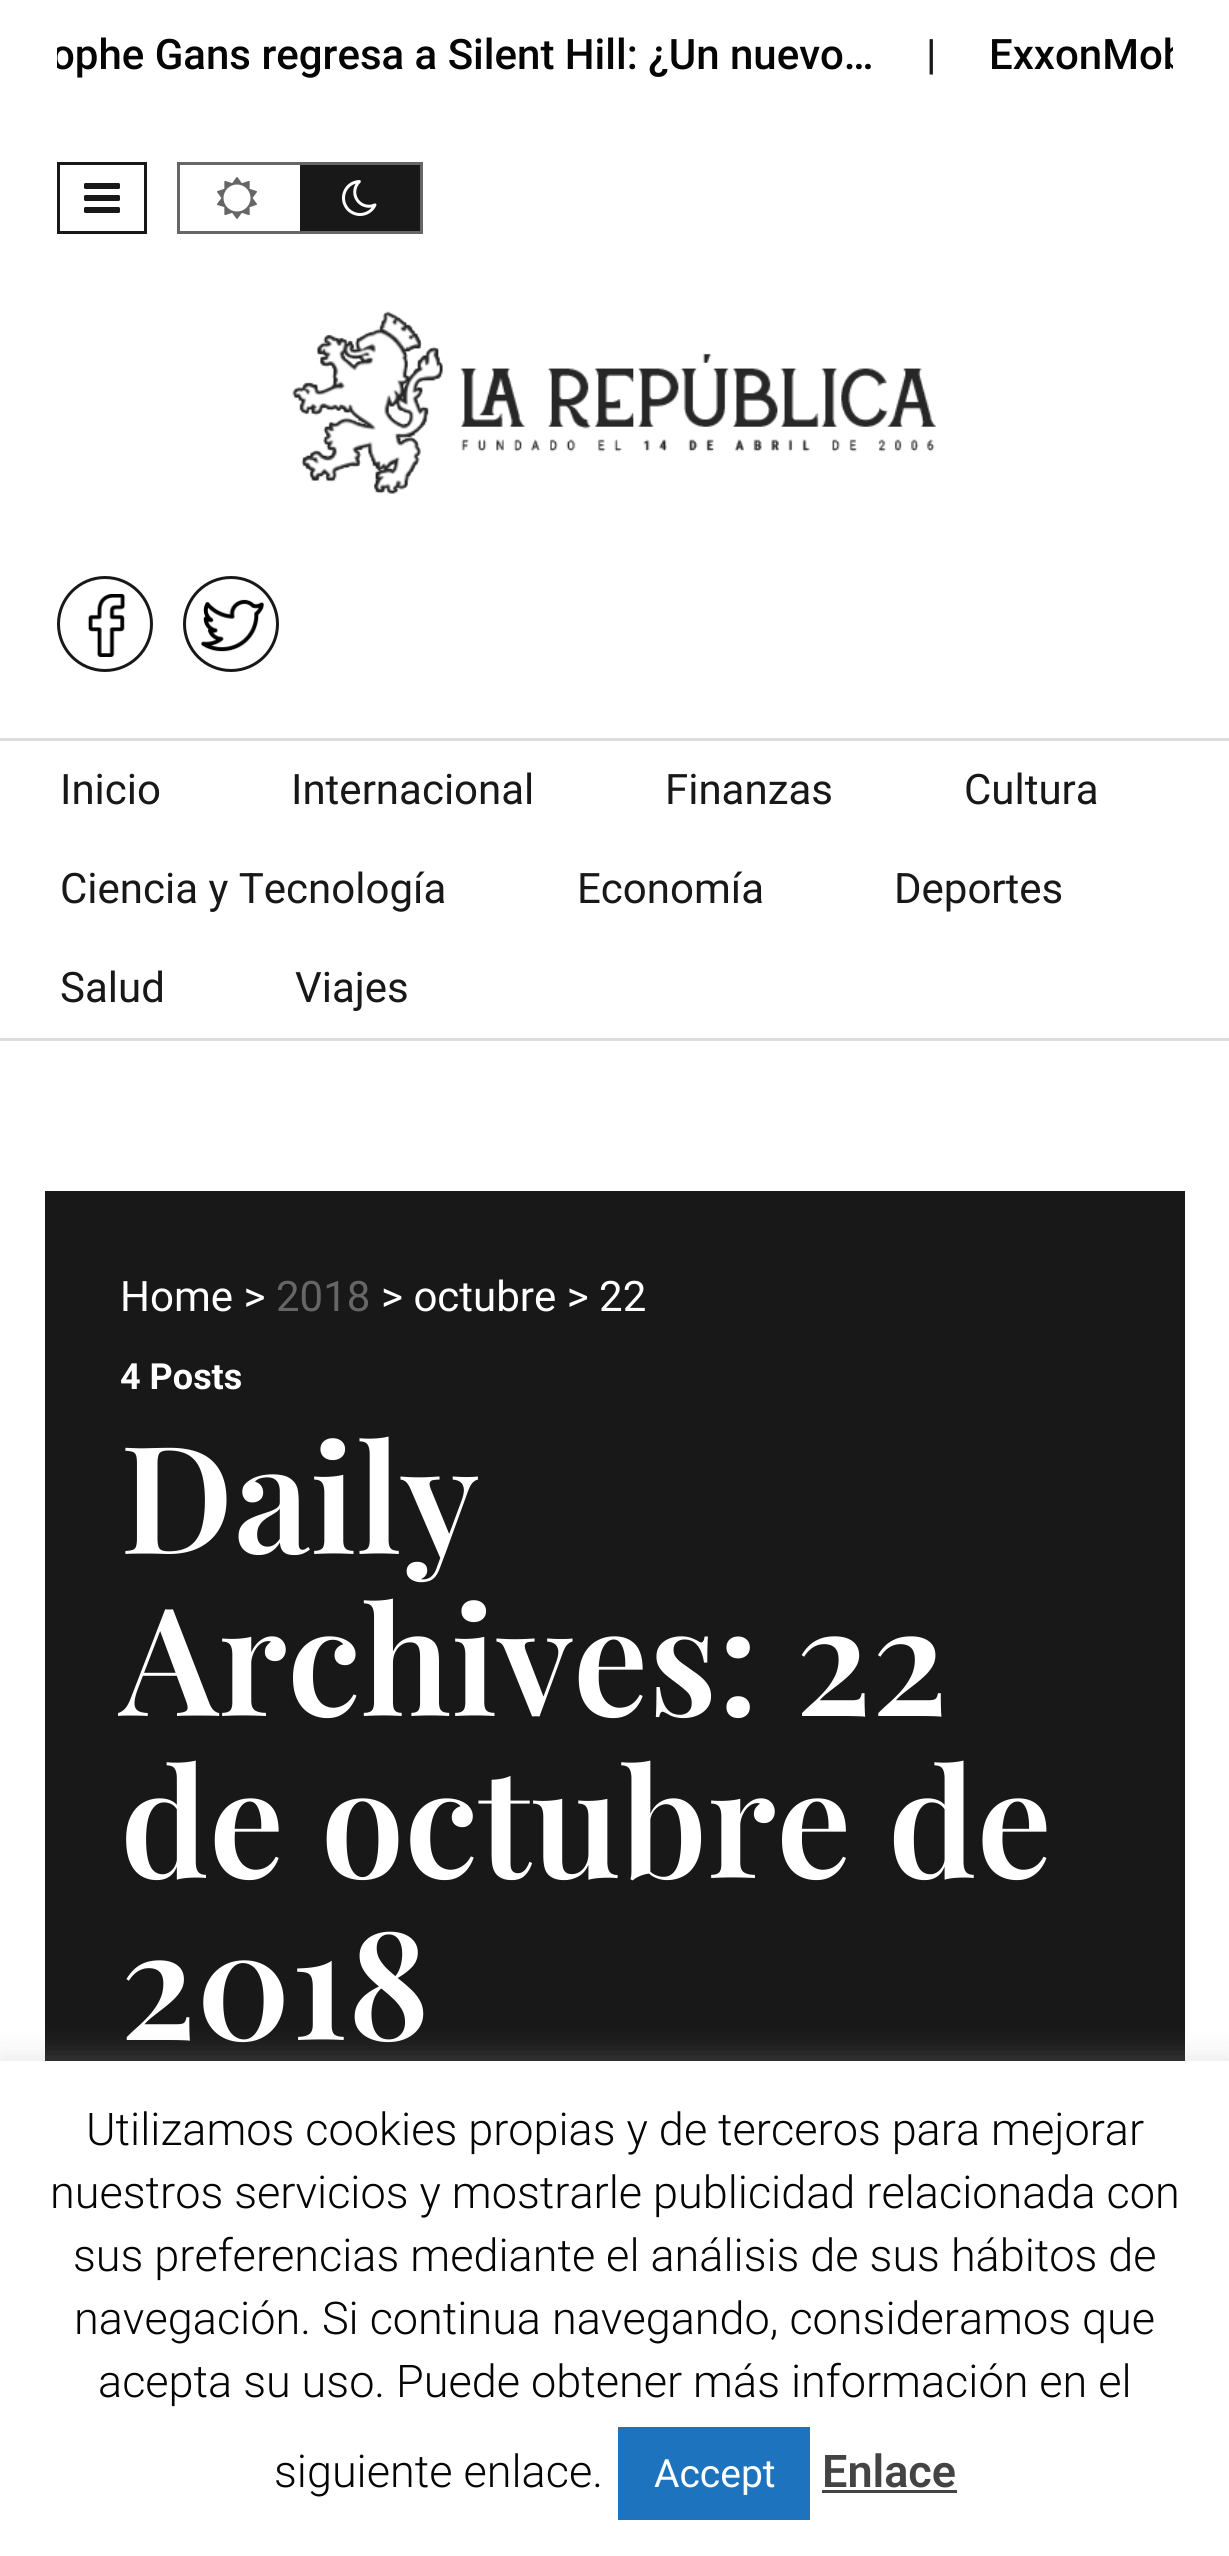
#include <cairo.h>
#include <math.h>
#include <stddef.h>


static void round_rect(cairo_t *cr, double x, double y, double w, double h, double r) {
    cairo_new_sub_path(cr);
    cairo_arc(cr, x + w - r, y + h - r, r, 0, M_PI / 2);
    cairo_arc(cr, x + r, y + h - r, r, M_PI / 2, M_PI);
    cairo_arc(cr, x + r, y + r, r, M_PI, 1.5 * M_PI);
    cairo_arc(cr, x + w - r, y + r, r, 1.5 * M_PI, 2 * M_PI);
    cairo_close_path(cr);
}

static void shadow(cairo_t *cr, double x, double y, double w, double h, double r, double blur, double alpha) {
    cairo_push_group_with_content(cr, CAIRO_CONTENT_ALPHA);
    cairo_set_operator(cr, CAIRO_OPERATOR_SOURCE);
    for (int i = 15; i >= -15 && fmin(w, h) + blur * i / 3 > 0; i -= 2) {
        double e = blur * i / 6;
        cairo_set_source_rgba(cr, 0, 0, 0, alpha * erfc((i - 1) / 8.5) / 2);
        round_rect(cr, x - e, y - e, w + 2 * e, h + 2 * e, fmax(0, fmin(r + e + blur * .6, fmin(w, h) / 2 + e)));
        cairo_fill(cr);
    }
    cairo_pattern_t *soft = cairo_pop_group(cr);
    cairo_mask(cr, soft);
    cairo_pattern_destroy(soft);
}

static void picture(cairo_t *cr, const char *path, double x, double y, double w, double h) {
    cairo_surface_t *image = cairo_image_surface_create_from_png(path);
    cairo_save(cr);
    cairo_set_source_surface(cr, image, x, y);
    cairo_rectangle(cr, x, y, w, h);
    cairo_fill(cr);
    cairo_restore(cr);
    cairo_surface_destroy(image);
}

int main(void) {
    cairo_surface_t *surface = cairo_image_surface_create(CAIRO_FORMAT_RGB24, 1229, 2556);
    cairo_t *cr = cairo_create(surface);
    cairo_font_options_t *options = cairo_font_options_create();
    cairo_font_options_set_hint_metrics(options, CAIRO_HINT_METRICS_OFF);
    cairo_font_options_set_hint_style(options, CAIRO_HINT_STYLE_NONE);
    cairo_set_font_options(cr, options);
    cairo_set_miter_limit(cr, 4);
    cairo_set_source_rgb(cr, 1, 1, 1);
    cairo_paint(cr);
    cairo_save(cr);
    cairo_rectangle(cr, 57, 0, 1116, 102);
    cairo_clip(cr);
    cairo_select_font_face(cr, "Roboto Medium", CAIRO_FONT_SLANT_NORMAL, CAIRO_FONT_WEIGHT_NORMAL);
    cairo_set_font_size(cr, 42);
    cairo_set_source_rgb(cr, 0.02, 0.02, 0.02);
    cairo_move_to(cr, 51, 69);
    cairo_show_text(cr, "ophe Gans regresa a Silent Hill: ¿Un nuevo…");
    cairo_restore(cr);
    cairo_select_font_face(cr, "Roboto Medium", CAIRO_FONT_SLANT_NORMAL, CAIRO_FONT_WEIGHT_NORMAL);
    cairo_set_font_size(cr, 42);
    cairo_set_source_rgb(cr, 0.094, 0.094, 0.094);
    cairo_move_to(cr, 926, 69);
    cairo_show_text(cr, "|");
    cairo_save(cr);
    cairo_rectangle(cr, 57, 0, 1116, 102);
    cairo_clip(cr);
    cairo_set_source_rgb(cr, 0.02, 0.02, 0.02);
    cairo_move_to(cr, 989, 69);
    cairo_show_text(cr, "ExxonMob");
    cairo_restore(cr);
    cairo_rectangle(cr, 58.5, 163.5, 87, 69);
    cairo_set_line_width(cr, 3);
    cairo_stroke(cr);
    picture(cr, "img1.png", 84, 183, 36, 30);
    cairo_rectangle(cr, 300, 165, 120, 66);
    cairo_fill(cr);
    cairo_rectangle(cr, 178.5, 163.5, 243, 69);
    cairo_set_source_rgb(cr, 0.4, 0.4, 0.4);
    cairo_stroke(cr);
    picture(cr, "img2.png", 217, 177, 40, 42);
    picture(cr, "img3.png", 342, 180, 35, 36);
    picture(cr, "img4.png", 292, 311, 645, 183);
    cairo_arc(cr, 105, 624, 46.5, 0, 2 * M_PI);
    cairo_set_source_rgb(cr, 0.094, 0.094, 0.094);
    cairo_stroke(cr);
    picture(cr, "img5.png", 87, 594, 39, 63);
    cairo_arc(cr, 231, 624, 46.5, 0, 2 * M_PI);
    cairo_stroke(cr);
    picture(cr, "img6.png", 201, 599, 63, 53);
    cairo_set_source_rgb(cr, 0.867, 0.867, 0.867);
    cairo_rectangle(cr, 0, 738, 1229, 3);
    cairo_fill(cr);
    cairo_rectangle(cr, 0, 1038, 1229, 3);
    cairo_fill(cr);
    cairo_select_font_face(cr, "Roboto", CAIRO_FONT_SLANT_NORMAL, CAIRO_FONT_WEIGHT_NORMAL);
    cairo_set_source_rgb(cr, 0.094, 0.094, 0.094);
    cairo_move_to(cr, 60, 804);
    cairo_show_text(cr, "Inicio");
    cairo_move_to(cr, 291, 804);
    cairo_show_text(cr, "Internacional");
    cairo_move_to(cr, 665, 804);
    cairo_show_text(cr, "Finanzas");
    cairo_move_to(cr, 964, 804);
    cairo_show_text(cr, "Cultura");
    cairo_move_to(cr, 60, 903);
    cairo_show_text(cr, "Ciencia y Tecnología");
    cairo_move_to(cr, 577, 903);
    cairo_show_text(cr, "Economía");
    cairo_move_to(cr, 894, 903);
    cairo_show_text(cr, "Deportes");
    cairo_move_to(cr, 60, 1002);
    cairo_show_text(cr, "Salud");
    cairo_move_to(cr, 295, 1002);
    cairo_show_text(cr, "Viajes");
    cairo_rectangle(cr, 45, 1191, 1140, 870);
    cairo_fill(cr);
    cairo_set_source_rgb(cr, 1, 1, 1);
    cairo_move_to(cr, 120, 1311);
    cairo_show_text(cr, "Home >");
    cairo_set_source_rgb(cr, 0.4, 0.4, 0.4);
    cairo_move_to(cr, 276, 1311);
    cairo_show_text(cr, "2018");
    cairo_set_source_rgb(cr, 1, 1, 1);
    cairo_move_to(cr, 381, 1311);
    cairo_show_text(cr, "> octubre > 22");
    cairo_select_font_face(cr, "Roboto", CAIRO_FONT_SLANT_NORMAL, CAIRO_FONT_WEIGHT_BOLD);
    cairo_set_font_size(cr, 36);
    cairo_move_to(cr, 120, 1389);
    cairo_show_text(cr, "4 Posts");
    cairo_select_font_face(cr, "Playfair Display SemiBold", CAIRO_FONT_SLANT_NORMAL, CAIRO_FONT_WEIGHT_NORMAL);
    cairo_set_font_size(cr, 150);
    cairo_move_to(cr, 120, 1554);
    cairo_show_text(cr, "Daily");
    cairo_move_to(cr, 120, 1716);
    cairo_show_text(cr, "Archives: 22");
    cairo_move_to(cr, 120, 1878);
    cairo_show_text(cr, "de octubre de");
    cairo_move_to(cr, 120, 2040);
    cairo_show_text(cr, "2018");
    cairo_set_source_rgb(cr, 0.675, 0.671, 0.671);
    shadow(cr, 0, 2058, 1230, 495, 0, 15, 0.3);
    cairo_set_source_rgb(cr, 1, 1, 1);
    cairo_rectangle(cr, 0, 2061, 1229, 495);
    cairo_fill(cr);
    cairo_select_font_face(cr, "Roboto Light", CAIRO_FONT_SLANT_NORMAL, CAIRO_FONT_WEIGHT_NORMAL);
    cairo_set_font_size(cr, 45);
    cairo_set_source_rgb(cr, 0.02, 0.02, 0.02);
    cairo_move_to(cr, 86, 2145);
    cairo_show_text(cr, "Utilizamos cookies propias y de terceros para mejorar");
    cairo_move_to(cr, 50, 2208);
    cairo_show_text(cr, "nuestros servicios y mostrarle publicidad relacionada con");
    cairo_move_to(cr, 73, 2271);
    cairo_show_text(cr, "sus preferencias mediante el análisis de sus hábitos de");
    cairo_move_to(cr, 74, 2334);
    cairo_show_text(cr, "navegación. Si continua navegando, consideramos que");
    cairo_move_to(cr, 98, 2397);
    cairo_show_text(cr, "acepta su uso. Puede obtener más información en el");
    cairo_move_to(cr, 274, 2487);
    cairo_show_text(cr, "siguiente enlace.");
    cairo_set_source_rgb(cr, 0.118, 0.451, 0.745);
    cairo_rectangle(cr, 618, 2427, 192, 93);
    cairo_fill(cr);
    cairo_select_font_face(cr, "Roboto", CAIRO_FONT_SLANT_NORMAL, CAIRO_FONT_WEIGHT_NORMAL);
    cairo_set_font_size(cr, 39);
    cairo_set_source_rgb(cr, 1, 1, 1);
    cairo_move_to(cr, 654, 2487);
    cairo_show_text(cr, "Accept");
    cairo_select_font_face(cr, "Roboto SemiBold", CAIRO_FONT_SLANT_NORMAL, CAIRO_FONT_WEIGHT_NORMAL);
    cairo_set_font_size(cr, 45);
    cairo_set_source_rgb(cr, 0.267, 0.267, 0.267);
    cairo_move_to(cr, 822, 2487);
    cairo_show_text(cr, "Enlace");
    cairo_rectangle(cr, 822, 2490, 135, 3);
    cairo_fill(cr);
    cairo_surface_write_to_png(surface, "page.png");
    cairo_font_options_destroy(options);
    cairo_destroy(cr);
    cairo_surface_destroy(surface);
    return 0;
}
